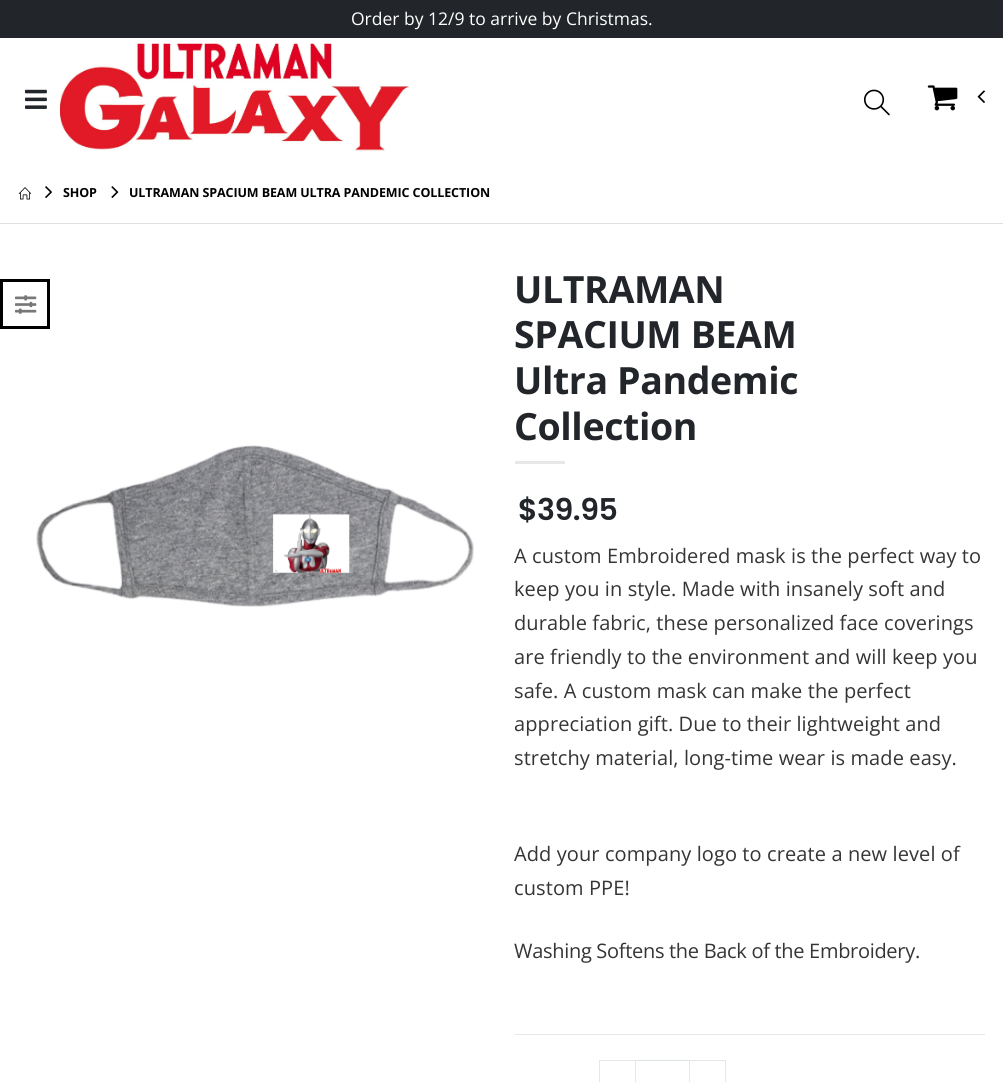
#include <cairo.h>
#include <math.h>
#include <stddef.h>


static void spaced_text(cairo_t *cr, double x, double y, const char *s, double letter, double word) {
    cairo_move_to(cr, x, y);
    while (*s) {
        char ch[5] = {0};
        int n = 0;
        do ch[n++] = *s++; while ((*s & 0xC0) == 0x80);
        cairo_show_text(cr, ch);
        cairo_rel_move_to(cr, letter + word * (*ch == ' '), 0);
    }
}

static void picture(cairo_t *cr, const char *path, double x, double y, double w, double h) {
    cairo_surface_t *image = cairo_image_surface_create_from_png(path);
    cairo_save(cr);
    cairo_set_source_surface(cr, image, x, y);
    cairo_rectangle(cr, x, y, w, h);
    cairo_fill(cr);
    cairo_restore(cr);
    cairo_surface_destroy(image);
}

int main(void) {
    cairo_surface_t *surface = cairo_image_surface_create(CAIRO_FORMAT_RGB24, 1003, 1082);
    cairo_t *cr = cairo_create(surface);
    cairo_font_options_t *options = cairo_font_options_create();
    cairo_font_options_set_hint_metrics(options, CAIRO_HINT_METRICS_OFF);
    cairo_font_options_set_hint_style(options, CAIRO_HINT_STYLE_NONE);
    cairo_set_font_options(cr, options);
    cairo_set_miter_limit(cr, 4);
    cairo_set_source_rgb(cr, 1, 1, 1);
    cairo_paint(cr);
    cairo_set_source_rgb(cr, 0.133, 0.145, 0.161);
    cairo_rectangle(cr, 0, 0, 1003, 38);
    cairo_fill(cr);
    cairo_select_font_face(cr, "Open Sans", CAIRO_FONT_SLANT_NORMAL, CAIRO_FONT_WEIGHT_NORMAL);
    cairo_set_font_size(cr, 17.5);
    cairo_set_source_rgb(cr, 1, 1, 1);
    cairo_move_to(cr, 351, 25);
    cairo_show_text(cr, "Order by 12/9 to arrive by Christmas.");
    picture(cr, "img1.png", 25, 89, 22, 20);
    picture(cr, "img2.png", 60, 43, 349, 108);
    picture(cr, "img3.png", 863, 89, 27, 27);
    picture(cr, "img4.png", 927, 85, 31, 26);
    picture(cr, "img5.png", 977, 90, 8, 13);
    cairo_set_source_rgb(cr, 0.875, 0.875, 0.875);
    cairo_rectangle(cr, 0, 223, 1003, 1);
    cairo_fill(cr);
    picture(cr, "img6.png", 18, 187, 14, 13);
    picture(cr, "img7.png", 45, 186, 7, 12);
    cairo_select_font_face(cr, "Open Sans", CAIRO_FONT_SLANT_NORMAL, CAIRO_FONT_WEIGHT_BOLD);
    cairo_set_font_size(cr, 12.5);
    cairo_set_source_rgb(cr, 0, 0, 0);
    spaced_text(cr, 63, 197, "SHOP", -0.1, 0);
    picture(cr, "img8.png", 111, 186, 8, 12);
    spaced_text(cr, 129, 197, "ULTRAMAN SPACIUM BEAM ULTRA PANDEMIC COLLECTION", -0.1, 0);
    cairo_rectangle(cr, 1.5, 280.5, 47, 47);
    cairo_set_line_width(cr, 3);
    cairo_stroke(cr);
    picture(cr, "img9.png", 15, 295, 22, 19);
    picture(cr, "img10.png", 36, 445, 438, 162);
    cairo_set_font_size(cr, 37.5);
    cairo_set_source_rgb(cr, 0.133, 0.145, 0.161);
    spaced_text(cr, 514, 303, "ULTRAMAN", -0.4, 0);
    spaced_text(cr, 514, 348, "SPACIUM BEAM", -0.4, 0);
    spaced_text(cr, 514, 394, "Ultra Pandemic", -0.4, 0);
    spaced_text(cr, 514, 440, "Collection", -0.4, 0);
    cairo_set_source_rgb(cr, 0.906, 0.906, 0.906);
    cairo_rectangle(cr, 515, 461, 50, 3);
    cairo_fill(cr);
    cairo_select_font_face(cr, "Poppins SemiBold", CAIRO_FONT_SLANT_NORMAL, CAIRO_FONT_WEIGHT_NORMAL);
    cairo_set_font_size(cr, 30);
    cairo_set_source_rgb(cr, 0.133, 0.145, 0.161);
    spaced_text(cr, 518, 520, "$39.95", -0.5, 0);
    cairo_select_font_face(cr, "Open Sans", CAIRO_FONT_SLANT_NORMAL, CAIRO_FONT_WEIGHT_NORMAL);
    cairo_set_font_size(cr, 20);
    cairo_set_source_rgb(cr, 0.208, 0.208, 0.208);
    spaced_text(cr, 514, 563, "A custom Embroidered mask is the perfect way to", 0.1, 0);
    spaced_text(cr, 514, 596, "keep you in style. Made with insanely soft and", 0.1, 0);
    spaced_text(cr, 514, 630, "durable fabric, these personalized face coverings", 0.1, 0);
    spaced_text(cr, 514, 664, "are friendly to the environment and will keep you", 0.1, 0);
    spaced_text(cr, 514, 698, "safe. A custom mask can make the perfect", 0.1, 0);
    spaced_text(cr, 514, 731, "appreciation gift. Due to their lightweight and", 0.1, 0);
    spaced_text(cr, 514, 765, "stretchy material, long-time wear is made easy.", 0.1, 0);
    spaced_text(cr, 514, 861, "Add your company logo to create a new level of", 0.1, 0);
    spaced_text(cr, 514, 895, "custom PPE!", 0.1, 0);
    spaced_text(cr, 514, 958, "Washing Softens the Back of the Embroidery.", -0.3, 0);
    cairo_set_source_rgb(cr, 0.906, 0.906, 0.906);
    cairo_rectangle(cr, 515, 1034, 470, 1);
    cairo_fill(cr);
    cairo_rectangle(cr, 635.5, 1060.5, 54, 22);
    cairo_set_source_rgb(cr, 0.855, 0.886, 0.902);
    cairo_set_line_width(cr, 1);
    cairo_stroke(cr);
    cairo_rectangle(cr, 599.5, 1060.5, 36, 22);
    cairo_set_source_rgb(cr, 0.906, 0.906, 0.906);
    cairo_stroke(cr);
    cairo_rectangle(cr, 689.5, 1060.5, 36, 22);
    cairo_stroke(cr);
    cairo_surface_write_to_png(surface, "page.png");
    cairo_font_options_destroy(options);
    cairo_destroy(cr);
    cairo_surface_destroy(surface);
    return 0;
}
